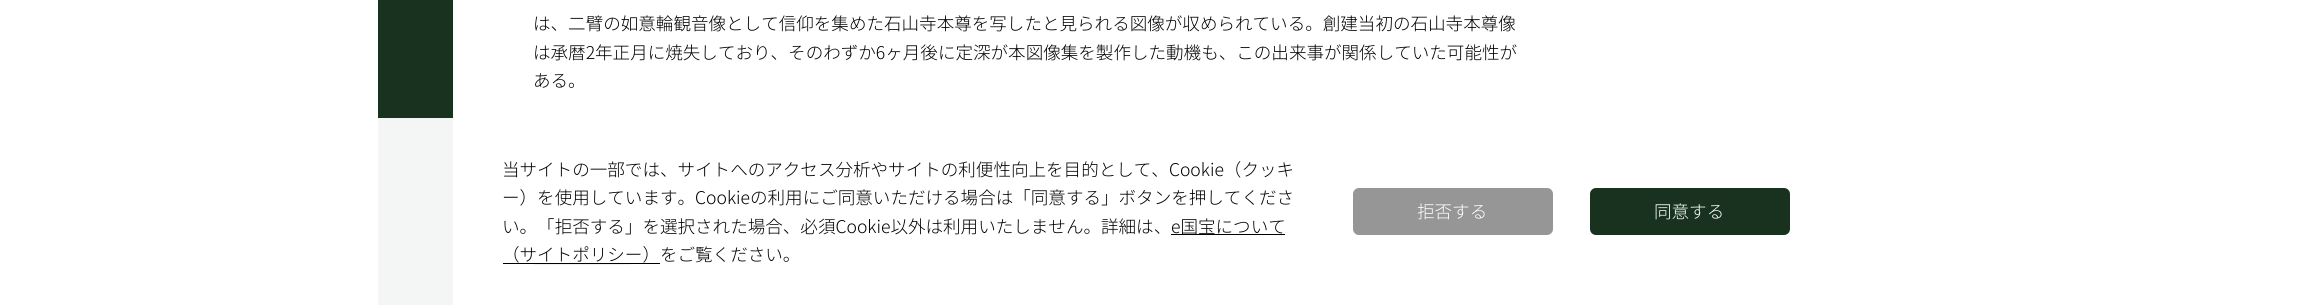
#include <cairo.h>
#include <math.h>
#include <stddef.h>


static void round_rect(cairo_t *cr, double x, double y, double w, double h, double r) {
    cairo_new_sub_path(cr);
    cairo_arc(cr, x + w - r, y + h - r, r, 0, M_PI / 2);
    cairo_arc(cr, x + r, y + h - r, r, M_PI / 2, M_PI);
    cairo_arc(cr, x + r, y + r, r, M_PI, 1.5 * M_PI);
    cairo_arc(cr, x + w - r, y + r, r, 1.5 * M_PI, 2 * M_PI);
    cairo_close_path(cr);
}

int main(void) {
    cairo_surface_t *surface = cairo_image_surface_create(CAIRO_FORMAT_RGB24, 2316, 305);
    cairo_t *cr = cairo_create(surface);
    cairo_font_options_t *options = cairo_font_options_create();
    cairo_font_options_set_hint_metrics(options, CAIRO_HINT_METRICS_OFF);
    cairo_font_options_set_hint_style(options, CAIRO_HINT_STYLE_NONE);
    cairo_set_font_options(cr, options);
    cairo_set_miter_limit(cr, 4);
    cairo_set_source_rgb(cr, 1, 1, 1);
    cairo_paint(cr);
    cairo_set_source_rgb(cr, 0.094, 0.196, 0.122);
    cairo_rectangle(cr, 378, 0, 75, 118);
    cairo_fill(cr);
    cairo_set_source_rgb(cr, 0.953, 0.961, 0.957);
    cairo_rectangle(cr, 378, 118, 75, 187);
    cairo_fill(cr);
    cairo_select_font_face(cr, "Noto Sans JP Light", CAIRO_FONT_SLANT_NORMAL, CAIRO_FONT_WEIGHT_NORMAL);
    cairo_set_font_size(cr, 17.55);
    cairo_set_source_rgb(cr, 0, 0, 0);
    cairo_move_to(cr, 533, 30);
    cairo_show_text(cr, "は、二臂の如意輪観音像として信仰を集めた石山寺本尊を写したと見られる図像が収められている。創建当初の石山寺本尊像");
    cairo_move_to(cr, 533, 59);
    cairo_show_text(cr, "は承暦2年正月に焼失しており、そのわずか6ヶ月後に定深が本図像集を製作した動機も、この出来事が関係していた可能性が");
    cairo_move_to(cr, 533, 87);
    cairo_show_text(cr, "ある。");
    cairo_set_source_rgb(cr, 0.949, 0.949, 0.949);
    cairo_rectangle(cr, 534, 264, 97, 1);
    cairo_fill(cr);
    cairo_set_source_rgb(cr, 0, 0, 0);
    cairo_move_to(cr, 502, 176);
    cairo_show_text(cr, "当サイトの一部では、サイトへのアクセス分析やサイトの利便性向上を目的として、Cookie（クッキ");
    cairo_move_to(cr, 502, 204);
    cairo_show_text(cr, "ー）を使用しています。Cookieの利用にご同意いただける場合は「同意する」ボタンを押してくださ");
    cairo_move_to(cr, 502, 233);
    cairo_show_text(cr, "い。「拒否する」を選択された場合、必須Cookie以外は利用いたしません。詳細は、");
    cairo_rectangle(cr, 1171, 234, 114, 1);
    cairo_fill(cr);
    cairo_move_to(cr, 1171, 233);
    cairo_show_text(cr, "e国宝について");
    cairo_move_to(cr, 502, 261);
    cairo_show_text(cr, "（サイトポリシー）をご覧ください。");
    cairo_rectangle(cr, 503, 263, 157, 1);
    cairo_fill(cr);
    cairo_set_source_rgb(cr, 0.588, 0.588, 0.588);
    round_rect(cr, 1353, 188, 200, 47, 6);
    cairo_fill(cr);
    cairo_set_source_rgb(cr, 1, 1, 1);
    cairo_move_to(cr, 1417, 218);
    cairo_show_text(cr, "拒否する");
    cairo_set_source_rgb(cr, 0.094, 0.196, 0.122);
    round_rect(cr, 1590, 188, 200, 47, 6);
    cairo_fill(cr);
    cairo_set_source_rgb(cr, 1, 1, 1);
    cairo_move_to(cr, 1654, 218);
    cairo_show_text(cr, "同意する");
    cairo_surface_write_to_png(surface, "page.png");
    cairo_font_options_destroy(options);
    cairo_destroy(cr);
    cairo_surface_destroy(surface);
    return 0;
}
